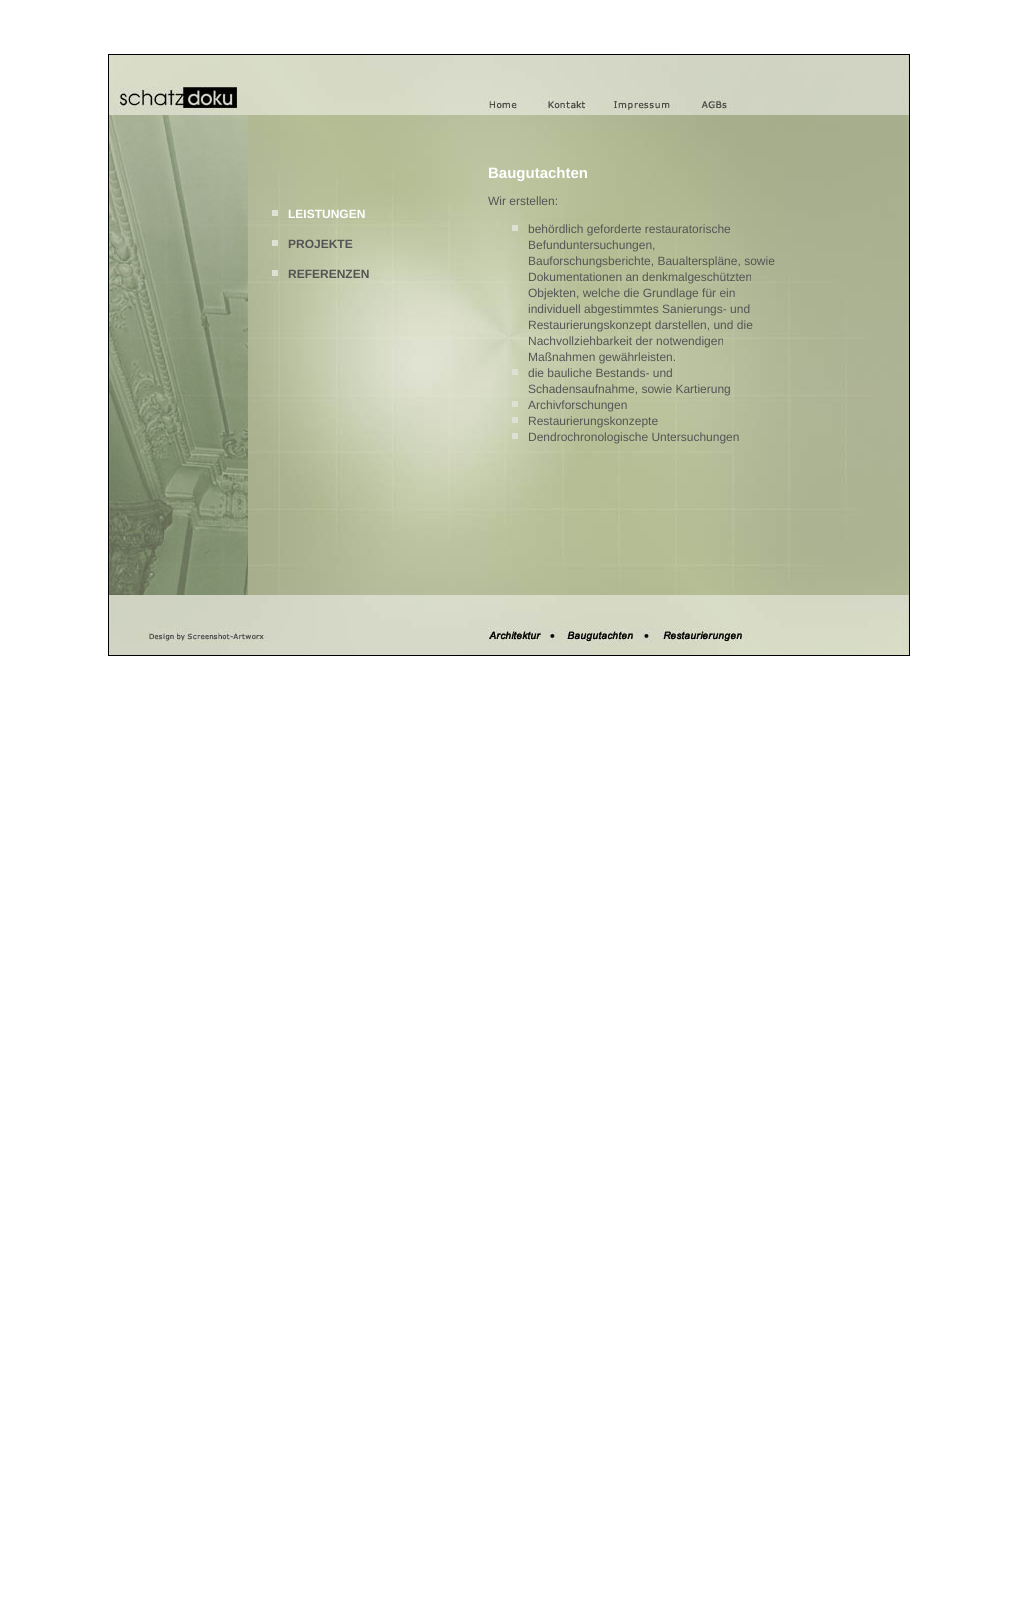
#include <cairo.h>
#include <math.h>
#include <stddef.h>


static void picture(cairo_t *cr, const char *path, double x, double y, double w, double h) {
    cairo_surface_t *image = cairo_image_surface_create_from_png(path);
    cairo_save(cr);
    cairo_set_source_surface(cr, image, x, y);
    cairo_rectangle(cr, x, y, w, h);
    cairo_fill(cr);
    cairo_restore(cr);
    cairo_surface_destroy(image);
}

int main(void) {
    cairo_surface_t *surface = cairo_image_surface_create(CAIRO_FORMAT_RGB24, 1018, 1611);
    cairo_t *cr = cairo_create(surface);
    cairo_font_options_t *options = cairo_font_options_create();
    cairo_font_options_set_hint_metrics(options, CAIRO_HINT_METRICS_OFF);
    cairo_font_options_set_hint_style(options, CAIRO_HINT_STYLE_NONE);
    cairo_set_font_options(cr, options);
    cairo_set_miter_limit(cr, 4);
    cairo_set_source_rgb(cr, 1, 1, 1);
    cairo_paint(cr);
    cairo_rectangle(cr, 108.5, 54.5, 801, 601);
    cairo_set_source_rgb(cr, 0, 0, 0);
    cairo_set_line_width(cr, 1);
    cairo_stroke(cr);
    picture(cr, "img1.png", 109, 55, 800, 60);
    picture(cr, "img2.png", 109, 115, 139, 480);
    picture(cr, "img3.png", 248, 115, 661, 480);
    cairo_set_source_rgb(cr, 0.871, 0.878, 0.824);
    cairo_rectangle(cr, 272, 210, 6, 6);
    cairo_fill(cr);
    cairo_select_font_face(cr, "Liberation Sans", CAIRO_FONT_SLANT_NORMAL, CAIRO_FONT_WEIGHT_BOLD);
    cairo_set_font_size(cr, 12);
    cairo_set_source_rgb(cr, 1, 1, 1);
    cairo_move_to(cr, 288, 218);
    cairo_show_text(cr, "LEISTUNGEN");
    cairo_set_font_size(cr, 15);
    cairo_move_to(cr, 488, 178);
    cairo_show_text(cr, "Baugutachten");
    cairo_select_font_face(cr, "Liberation Sans", CAIRO_FONT_SLANT_NORMAL, CAIRO_FONT_WEIGHT_NORMAL);
    cairo_set_font_size(cr, 12);
    cairo_set_source_rgb(cr, 0.329, 0.329, 0.329);
    cairo_move_to(cr, 488, 205);
    cairo_show_text(cr, "Wir erstellen:");
    cairo_set_source_rgb(cr, 0.871, 0.878, 0.824);
    cairo_rectangle(cr, 512, 225, 6, 6);
    cairo_fill(cr);
    cairo_set_source_rgb(cr, 0.329, 0.329, 0.329);
    cairo_move_to(cr, 528, 233);
    cairo_show_text(cr, "behördlich geforderte restauratorische");
    cairo_move_to(cr, 528, 249);
    cairo_show_text(cr, "Befunduntersuchungen,");
    cairo_move_to(cr, 528, 265);
    cairo_show_text(cr, "Bauforschungsberichte, Baualterspläne, sowie");
    cairo_move_to(cr, 528, 281);
    cairo_show_text(cr, "Dokumentationen an denkmalgeschützten");
    cairo_move_to(cr, 528, 297);
    cairo_show_text(cr, "Objekten, welche die Grundlage für ein");
    cairo_move_to(cr, 528, 313);
    cairo_show_text(cr, "individuell abgestimmtes Sanierungs- und");
    cairo_move_to(cr, 528, 329);
    cairo_show_text(cr, "Restaurierungskonzept darstellen, und die");
    cairo_move_to(cr, 528, 345);
    cairo_show_text(cr, "Nachvollziehbarkeit der notwendigen");
    cairo_move_to(cr, 528, 361);
    cairo_show_text(cr, "Maßnahmen gewährleisten.");
    cairo_set_source_rgb(cr, 0.871, 0.878, 0.824);
    cairo_rectangle(cr, 512, 369, 6, 6);
    cairo_fill(cr);
    cairo_set_source_rgb(cr, 0.329, 0.329, 0.329);
    cairo_move_to(cr, 528, 377);
    cairo_show_text(cr, "die bauliche Bestands- und");
    cairo_move_to(cr, 528, 393);
    cairo_show_text(cr, "Schadensaufnahme, sowie Kartierung");
    cairo_set_source_rgb(cr, 0.871, 0.878, 0.824);
    cairo_rectangle(cr, 512, 401, 6, 6);
    cairo_fill(cr);
    cairo_set_source_rgb(cr, 0.329, 0.329, 0.329);
    cairo_move_to(cr, 528, 409);
    cairo_show_text(cr, "Archivforschungen");
    cairo_set_source_rgb(cr, 0.871, 0.878, 0.824);
    cairo_rectangle(cr, 512, 417, 6, 6);
    cairo_fill(cr);
    cairo_set_source_rgb(cr, 0.329, 0.329, 0.329);
    cairo_move_to(cr, 528, 425);
    cairo_show_text(cr, "Restaurierungskonzepte");
    cairo_set_source_rgb(cr, 0.871, 0.878, 0.824);
    cairo_rectangle(cr, 512, 433, 6, 6);
    cairo_fill(cr);
    cairo_set_source_rgb(cr, 0.329, 0.329, 0.329);
    cairo_move_to(cr, 528, 441);
    cairo_show_text(cr, "Dendrochronologische Untersuchungen");
    cairo_set_source_rgb(cr, 0.871, 0.878, 0.824);
    cairo_rectangle(cr, 272, 240, 6, 6);
    cairo_fill(cr);
    cairo_select_font_face(cr, "Liberation Sans", CAIRO_FONT_SLANT_NORMAL, CAIRO_FONT_WEIGHT_BOLD);
    cairo_set_source_rgb(cr, 0.329, 0.329, 0.329);
    cairo_move_to(cr, 288, 248);
    cairo_show_text(cr, "PROJEKTE");
    cairo_set_source_rgb(cr, 0.871, 0.878, 0.824);
    cairo_rectangle(cr, 272, 270, 6, 6);
    cairo_fill(cr);
    cairo_set_source_rgb(cr, 0.329, 0.329, 0.329);
    cairo_move_to(cr, 288, 278);
    cairo_show_text(cr, "REFERENZEN");
    picture(cr, "img4.png", 109, 595, 800, 60);
    cairo_surface_write_to_png(surface, "page.png");
    cairo_font_options_destroy(options);
    cairo_destroy(cr);
    cairo_surface_destroy(surface);
    return 0;
}
